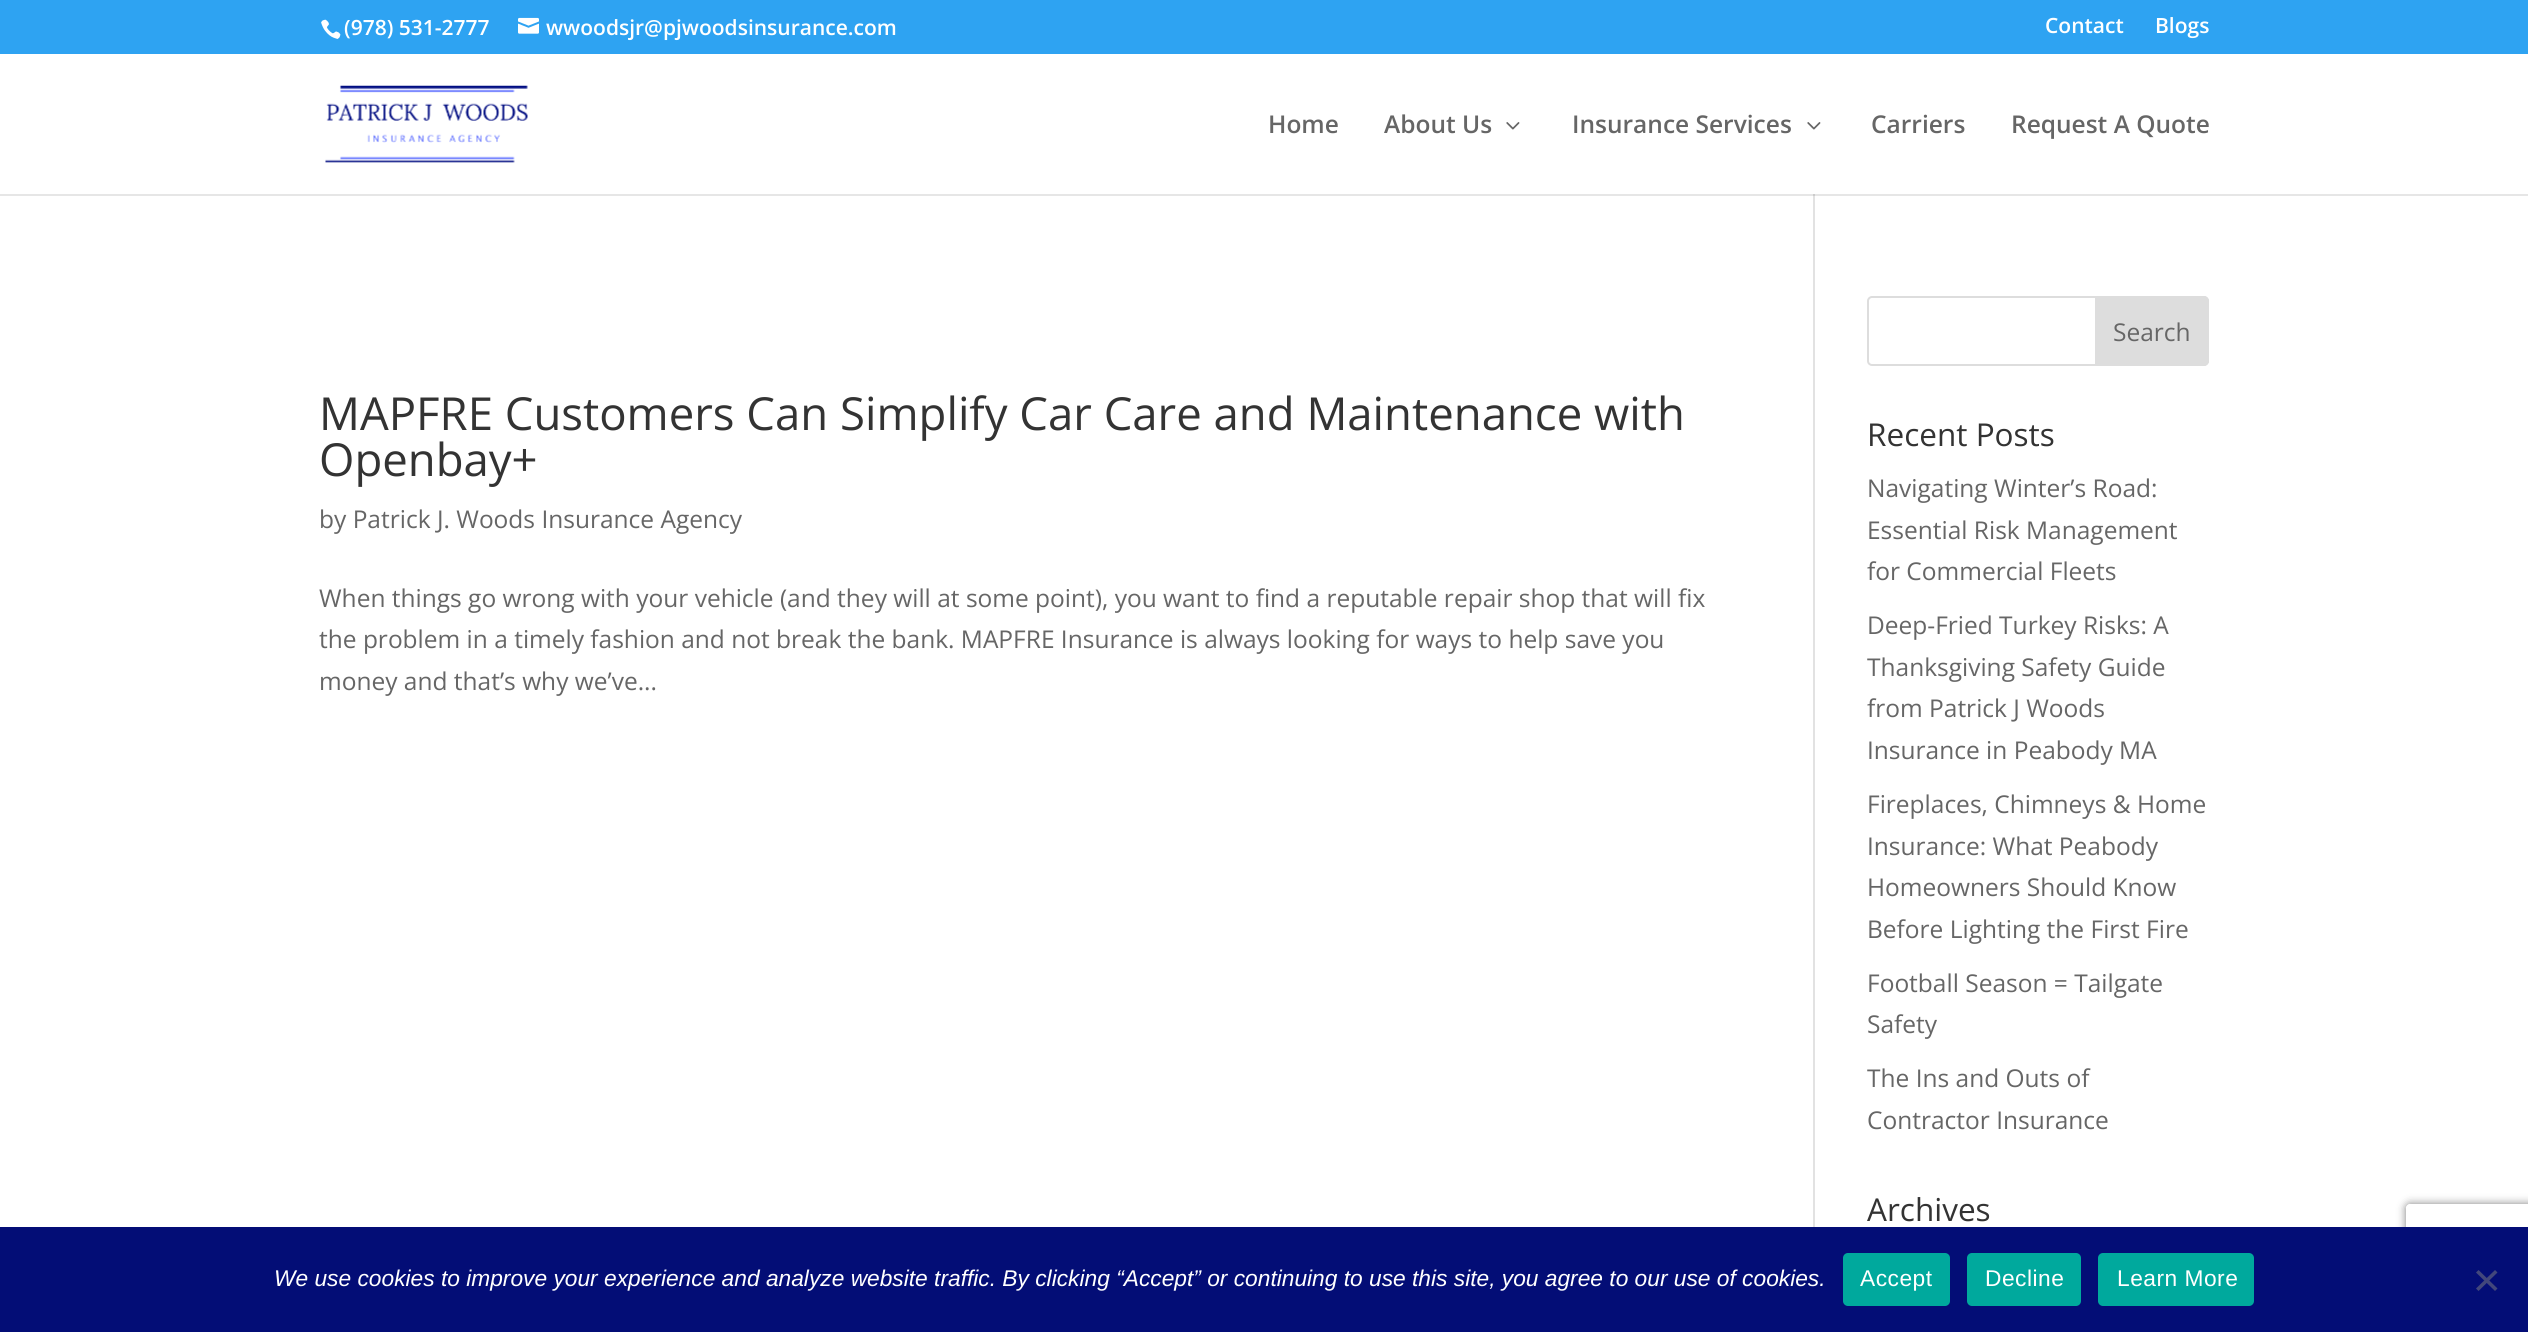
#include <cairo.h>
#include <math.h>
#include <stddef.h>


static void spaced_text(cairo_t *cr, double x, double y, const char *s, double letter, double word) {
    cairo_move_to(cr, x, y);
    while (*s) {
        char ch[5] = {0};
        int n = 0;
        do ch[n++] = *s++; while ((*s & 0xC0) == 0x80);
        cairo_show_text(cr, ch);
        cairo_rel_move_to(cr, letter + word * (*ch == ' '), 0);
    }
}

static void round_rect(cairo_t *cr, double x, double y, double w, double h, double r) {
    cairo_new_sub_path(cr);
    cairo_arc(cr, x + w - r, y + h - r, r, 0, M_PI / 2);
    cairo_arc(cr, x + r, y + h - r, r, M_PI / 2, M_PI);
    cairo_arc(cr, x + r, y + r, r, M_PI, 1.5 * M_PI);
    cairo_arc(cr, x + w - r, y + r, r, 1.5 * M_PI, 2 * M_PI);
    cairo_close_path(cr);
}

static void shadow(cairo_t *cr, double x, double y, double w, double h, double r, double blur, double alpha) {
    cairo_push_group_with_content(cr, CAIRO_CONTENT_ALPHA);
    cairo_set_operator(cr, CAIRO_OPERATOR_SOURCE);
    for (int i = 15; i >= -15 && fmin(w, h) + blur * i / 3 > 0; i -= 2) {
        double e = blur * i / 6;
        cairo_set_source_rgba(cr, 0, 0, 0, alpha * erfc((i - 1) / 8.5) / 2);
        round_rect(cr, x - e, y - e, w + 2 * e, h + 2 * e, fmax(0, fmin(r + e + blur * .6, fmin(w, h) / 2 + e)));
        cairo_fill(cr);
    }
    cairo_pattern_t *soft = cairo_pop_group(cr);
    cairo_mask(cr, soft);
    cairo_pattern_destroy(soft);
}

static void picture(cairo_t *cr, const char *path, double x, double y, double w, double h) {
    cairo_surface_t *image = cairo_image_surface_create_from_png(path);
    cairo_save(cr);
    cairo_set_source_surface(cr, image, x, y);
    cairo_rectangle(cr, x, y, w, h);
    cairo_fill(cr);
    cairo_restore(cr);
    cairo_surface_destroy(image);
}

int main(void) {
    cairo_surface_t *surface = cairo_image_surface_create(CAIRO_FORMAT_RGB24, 2528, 1332);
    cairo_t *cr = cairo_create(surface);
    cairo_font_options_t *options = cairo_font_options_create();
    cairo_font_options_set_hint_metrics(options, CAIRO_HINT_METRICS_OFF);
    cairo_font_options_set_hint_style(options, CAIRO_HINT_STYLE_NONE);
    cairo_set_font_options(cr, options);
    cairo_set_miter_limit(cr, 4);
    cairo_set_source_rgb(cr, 1, 1, 1);
    cairo_paint(cr);
    cairo_set_source_rgb(cr, 0.18, 0.639, 0.949);
    cairo_rectangle(cr, 0, 0, 2528, 54);
    cairo_fill(cr);
    picture(cr, "img1.png", 321, 19, 20, 20);
    cairo_select_font_face(cr, "Open Sans SemiBold", CAIRO_FONT_SLANT_NORMAL, CAIRO_FONT_WEIGHT_NORMAL);
    cairo_set_font_size(cr, 21);
    cairo_set_source_rgb(cr, 1, 1, 1);
    cairo_move_to(cr, 344, 35);
    cairo_show_text(cr, "(978) 531-2777");
    picture(cr, "img2.png", 518, 17, 21, 17);
    cairo_move_to(cr, 546, 35);
    cairo_show_text(cr, "wwoodsjr@pjwoodsinsurance.com");
    cairo_move_to(cr, 2045, 33);
    cairo_show_text(cr, "Contact");
    cairo_move_to(cr, 2155, 33);
    cairo_show_text(cr, "Blogs");
    cairo_set_source_rgb(cr, 0.886, 0.886, 0.886);
    cairo_rectangle(cr, 1813, 194, 2, 1033);
    cairo_fill(cr);
    cairo_set_source_rgba(cr, 0, 0, 0, 0.1);
    cairo_new_path(cr);
    cairo_move_to(cr, 0, 194);
    cairo_line_to(cr, 0, 196);
    cairo_line_to(cr, 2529, 196);
    cairo_line_to(cr, 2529, 56);
    cairo_line_to(cr, 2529, 194);
    cairo_close_path(cr);
    cairo_fill(cr);
    picture(cr, "img3.png", 325, 85, 203, 78);
    cairo_set_font_size(cr, 24.5);
    cairo_set_source_rgb(cr, 0.4, 0.4, 0.4);
    cairo_move_to(cr, 1268, 133);
    cairo_show_text(cr, "Home");
    cairo_move_to(cr, 1384, 133);
    cairo_show_text(cr, "About Us");
    picture(cr, "img4.png", 1506, 122, 14, 8);
    cairo_move_to(cr, 1572, 133);
    cairo_show_text(cr, "Insurance Services");
    picture(cr, "img4.png", 1807, 122, 14, 8);
    cairo_move_to(cr, 1871, 133);
    cairo_show_text(cr, "Carriers");
    cairo_move_to(cr, 2011, 133);
    cairo_show_text(cr, "Request A Quote");
    cairo_select_font_face(cr, "Open Sans", CAIRO_FONT_SLANT_NORMAL, CAIRO_FONT_WEIGHT_NORMAL);
    cairo_set_font_size(cr, 45.5);
    cairo_set_source_rgb(cr, 0.2, 0.2, 0.2);
    cairo_move_to(cr, 319, 430);
    cairo_show_text(cr, "MAPFRE Customers Can Simplify Car Care and Maintenance with");
    cairo_move_to(cr, 319, 476);
    cairo_show_text(cr, "Openbay+");
    cairo_set_font_size(cr, 24.5);
    cairo_set_source_rgb(cr, 0.4, 0.4, 0.4);
    cairo_move_to(cr, 319, 528);
    cairo_show_text(cr, "by Patrick J. Woods Insurance Agency");
    cairo_move_to(cr, 319, 607);
    cairo_show_text(cr, "When things go wrong with your vehicle (and they will at some point), you want to find a reputable repair shop that will fix");
    cairo_move_to(cr, 319, 648);
    cairo_show_text(cr, "the problem in a timely fashion and not break the bank. MAPFRE Insurance is always looking for ways to help save you");
    cairo_move_to(cr, 319, 690);
    cairo_show_text(cr, "money and that’s why we’ve...");
    round_rect(cr, 1868, 297, 340, 68, 4);
    cairo_set_source_rgb(cr, 0.867, 0.867, 0.867);
    cairo_stroke(cr);
    cairo_new_path(cr);
    cairo_move_to(cr, 2096, 297);
    cairo_line_to(cr, 2204, 297);
    cairo_curve_to(cr, 2206, 297, 2208, 299, 2208, 301);
    cairo_line_to(cr, 2208, 361);
    cairo_curve_to(cr, 2208, 363, 2206, 365, 2204, 365);
    cairo_line_to(cr, 2096, 365);
    cairo_close_path(cr);
    cairo_fill_preserve(cr);
    cairo_stroke(cr);
    cairo_set_source_rgb(cr, 0.4, 0.4, 0.4);
    cairo_move_to(cr, 2113, 341);
    cairo_show_text(cr, "Search");
    cairo_set_font_size(cr, 31.5);
    cairo_set_source_rgb(cr, 0.2, 0.2, 0.2);
    cairo_move_to(cr, 1867, 446);
    cairo_show_text(cr, "Recent Posts");
    cairo_set_font_size(cr, 24.5);
    cairo_set_source_rgb(cr, 0.4, 0.4, 0.4);
    cairo_move_to(cr, 1867, 497);
    cairo_show_text(cr, "Navigating Winter’s Road:");
    cairo_move_to(cr, 1867, 539);
    cairo_show_text(cr, "Essential Risk Management");
    cairo_move_to(cr, 1867, 580);
    cairo_show_text(cr, "for Commercial Fleets");
    cairo_move_to(cr, 1867, 634);
    cairo_show_text(cr, "Deep-Fried Turkey Risks: A");
    cairo_move_to(cr, 1867, 676);
    cairo_show_text(cr, "Thanksgiving Safety Guide");
    cairo_move_to(cr, 1867, 717);
    cairo_show_text(cr, "from Patrick J Woods");
    cairo_move_to(cr, 1867, 759);
    cairo_show_text(cr, "Insurance in Peabody MA");
    cairo_move_to(cr, 1867, 813);
    cairo_show_text(cr, "Fireplaces, Chimneys & Home");
    cairo_move_to(cr, 1867, 855);
    cairo_show_text(cr, "Insurance: What Peabody");
    cairo_move_to(cr, 1867, 896);
    cairo_show_text(cr, "Homeowners Should Know");
    cairo_move_to(cr, 1867, 938);
    cairo_show_text(cr, "Before Lighting the First Fire");
    cairo_move_to(cr, 1867, 992);
    cairo_show_text(cr, "Football Season = Tailgate");
    cairo_move_to(cr, 1867, 1033);
    cairo_show_text(cr, "Safety");
    cairo_move_to(cr, 1867, 1087);
    cairo_show_text(cr, "The Ins and Outs of");
    cairo_move_to(cr, 1867, 1129);
    cairo_show_text(cr, "Contractor Insurance");
    cairo_set_font_size(cr, 31.5);
    cairo_set_source_rgb(cr, 0.2, 0.2, 0.2);
    cairo_move_to(cr, 1867, 1221);
    cairo_show_text(cr, "Archives");
    cairo_save(cr);
    cairo_set_fill_rule(cr, CAIRO_FILL_RULE_EVEN_ODD);
    cairo_new_path(cr);
    cairo_move_to(cr, 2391, 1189);
    cairo_line_to(cr, 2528, 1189);
    cairo_line_to(cr, 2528, 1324);
    cairo_line_to(cr, 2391, 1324);
    cairo_close_path(cr);
    cairo_move_to(cr, 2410, 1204);
    cairo_line_to(cr, 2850, 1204);
    cairo_curve_to(cr, 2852, 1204, 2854, 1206, 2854, 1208);
    cairo_line_to(cr, 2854, 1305);
    cairo_curve_to(cr, 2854, 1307, 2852, 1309, 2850, 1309);
    cairo_line_to(cr, 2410, 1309);
    cairo_curve_to(cr, 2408, 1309, 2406, 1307, 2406, 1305);
    cairo_line_to(cr, 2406, 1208);
    cairo_curve_to(cr, 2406, 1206, 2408, 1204, 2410, 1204);
    cairo_close_path(cr);
    cairo_clip(cr);
    cairo_set_source_rgb(cr, 0.502, 0.502, 0.502);
    shadow(cr, 2406, 1204, 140, 105, 4, 4.5, 1);
    cairo_restore(cr);
    cairo_set_source_rgb(cr, 0.012, 0.051, 0.463);
    cairo_rectangle(cr, 0, 1227, 2528, 105);
    cairo_fill(cr);
    cairo_select_font_face(cr, "Liberation Sans", CAIRO_FONT_SLANT_ITALIC, CAIRO_FONT_WEIGHT_NORMAL);
    cairo_set_font_size(cr, 22.75);
    cairo_set_source_rgb(cr, 1, 1, 1);
    cairo_move_to(cr, 274, 1286);
    cairo_show_text(cr, "We use cookies to improve your experience and analyze website traffic. By clicking “Accept” or continuing to use this site, you agree to our use of cookies.");
    cairo_set_source_rgb(cr, 0, 0.663, 0.616);
    round_rect(cr, 1843, 1253, 107, 53, 5);
    cairo_fill(cr);
    cairo_select_font_face(cr, "Liberation Sans", CAIRO_FONT_SLANT_NORMAL, CAIRO_FONT_WEIGHT_NORMAL);
    cairo_set_source_rgb(cr, 1, 1, 1);
    spaced_text(cr, 1860, 1286, "Accept", 0.5, 0);
    cairo_set_source_rgb(cr, 0, 0.663, 0.616);
    round_rect(cr, 1967, 1253, 114, 53, 5);
    cairo_fill(cr);
    cairo_set_source_rgb(cr, 1, 1, 1);
    spaced_text(cr, 1985, 1286, "Decline", 0.5, 0);
    cairo_set_source_rgb(cr, 0, 0.663, 0.616);
    round_rect(cr, 2098, 1253, 156, 53, 5);
    cairo_fill(cr);
    cairo_set_source_rgb(cr, 1, 1, 1);
    spaced_text(cr, 2117, 1286, "Learn More", 0.5, 0);
    cairo_set_source_rgb(cr, 0.259, 0.278, 0.482);
    cairo_new_path(cr);
    cairo_move_to(cr, 2495, 1270);
    cairo_line_to(cr, 2497.5, 1272.5);
    cairo_line_to(cr, 2478.5, 1291);
    cairo_line_to(cr, 2476, 1288.5);
    cairo_close_path(cr);
    cairo_fill(cr);
    cairo_new_path(cr);
    cairo_move_to(cr, 2476, 1272.5);
    cairo_line_to(cr, 2478.5, 1270);
    cairo_line_to(cr, 2497.5, 1288.5);
    cairo_line_to(cr, 2495, 1291);
    cairo_close_path(cr);
    cairo_fill(cr);
    cairo_surface_write_to_png(surface, "page.png");
    cairo_font_options_destroy(options);
    cairo_destroy(cr);
    cairo_surface_destroy(surface);
    return 0;
}
